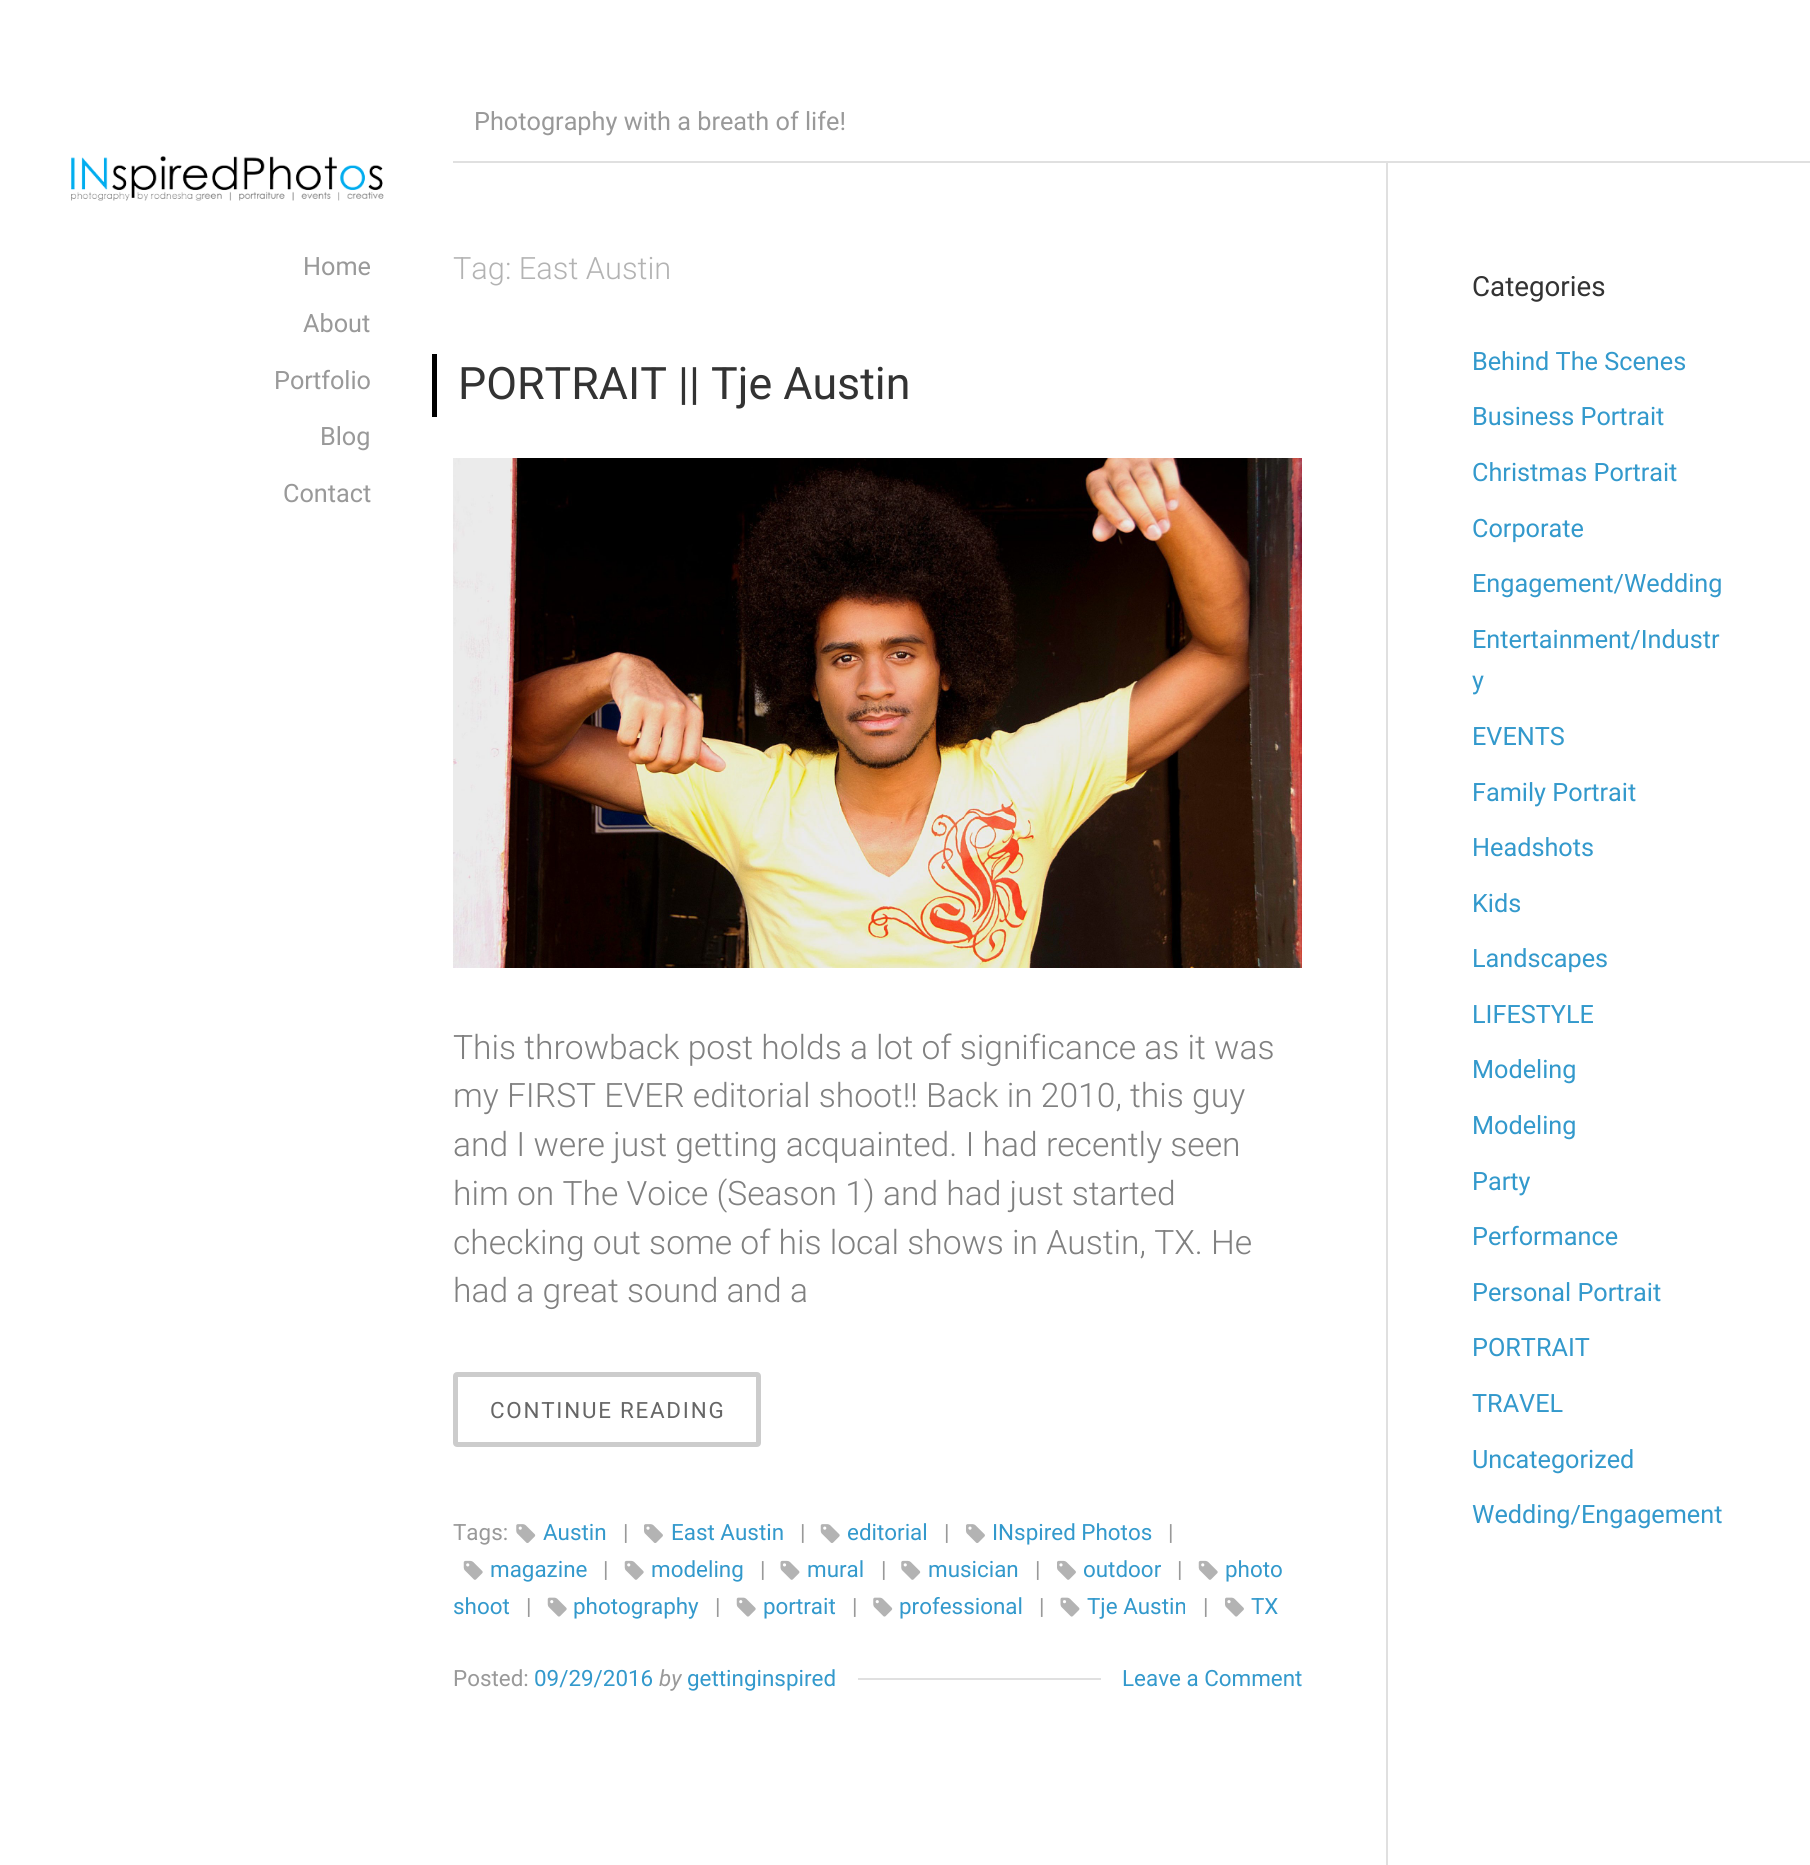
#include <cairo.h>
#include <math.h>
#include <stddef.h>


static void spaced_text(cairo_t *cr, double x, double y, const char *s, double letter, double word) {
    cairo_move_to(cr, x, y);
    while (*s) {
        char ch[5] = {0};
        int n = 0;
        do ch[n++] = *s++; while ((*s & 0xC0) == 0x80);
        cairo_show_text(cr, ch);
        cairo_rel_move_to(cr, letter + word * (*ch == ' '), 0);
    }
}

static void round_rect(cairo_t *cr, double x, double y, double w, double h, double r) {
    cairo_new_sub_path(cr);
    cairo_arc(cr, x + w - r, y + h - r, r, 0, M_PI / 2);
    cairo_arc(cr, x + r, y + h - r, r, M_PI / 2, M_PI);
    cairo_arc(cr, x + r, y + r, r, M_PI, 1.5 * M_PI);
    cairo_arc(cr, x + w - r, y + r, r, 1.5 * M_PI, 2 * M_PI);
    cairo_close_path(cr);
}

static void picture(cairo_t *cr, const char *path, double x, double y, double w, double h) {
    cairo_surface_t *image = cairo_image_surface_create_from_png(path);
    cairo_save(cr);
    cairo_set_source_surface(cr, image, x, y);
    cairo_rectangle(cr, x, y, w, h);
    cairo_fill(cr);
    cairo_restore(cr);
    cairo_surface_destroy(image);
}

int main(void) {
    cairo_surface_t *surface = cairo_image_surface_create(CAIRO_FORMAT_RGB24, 1810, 1865);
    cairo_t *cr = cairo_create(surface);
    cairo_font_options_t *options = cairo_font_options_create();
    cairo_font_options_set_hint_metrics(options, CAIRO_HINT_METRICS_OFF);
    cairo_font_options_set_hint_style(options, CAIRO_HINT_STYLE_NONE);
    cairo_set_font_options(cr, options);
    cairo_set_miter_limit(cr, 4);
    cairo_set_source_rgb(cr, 1, 1, 1);
    cairo_paint(cr);
    picture(cr, "img1.png", 71, 156, 313, 45);
    cairo_select_font_face(cr, "Roboto", CAIRO_FONT_SLANT_NORMAL, CAIRO_FONT_WEIGHT_NORMAL);
    cairo_set_font_size(cr, 25.25);
    cairo_set_source_rgb(cr, 0.6, 0.6, 0.6);
    cairo_move_to(cr, 303, 275);
    cairo_show_text(cr, "Home");
    cairo_move_to(cr, 303, 332);
    cairo_show_text(cr, "About");
    cairo_move_to(cr, 274, 389);
    cairo_show_text(cr, "Portfolio");
    cairo_move_to(cr, 320, 445);
    cairo_show_text(cr, "Blog");
    cairo_move_to(cr, 283, 502);
    cairo_show_text(cr, "Contact");
    cairo_set_source_rgb(cr, 0.878, 0.878, 0.878);
    cairo_rectangle(cr, 453, 161, 1357, 2);
    cairo_fill(cr);
    cairo_set_source_rgb(cr, 0.6, 0.6, 0.6);
    cairo_move_to(cr, 474, 130);
    cairo_show_text(cr, "Photography with a breath of life!");
    cairo_select_font_face(cr, "Roboto Light", CAIRO_FONT_SLANT_NORMAL, CAIRO_FONT_WEIGHT_NORMAL);
    cairo_set_font_size(cr, 30.75);
    cairo_set_source_rgb(cr, 0.702, 0.702, 0.702);
    cairo_move_to(cr, 453, 279);
    cairo_show_text(cr, "Tag: East Austin");
    cairo_set_source_rgb(cr, 0, 0, 0);
    cairo_rectangle(cr, 432, 354, 5, 63);
    cairo_fill(cr);
    cairo_select_font_face(cr, "Roboto", CAIRO_FONT_SLANT_NORMAL, CAIRO_FONT_WEIGHT_NORMAL);
    cairo_set_font_size(cr, 44.75);
    cairo_set_source_rgb(cr, 0.2, 0.2, 0.2);
    cairo_move_to(cr, 458, 399);
    cairo_show_text(cr, "PORTRAIT || Tje Austin");
    picture(cr, "img2.png", 453, 458, 849, 510);
    cairo_select_font_face(cr, "Roboto Light", CAIRO_FONT_SLANT_NORMAL, CAIRO_FONT_WEIGHT_NORMAL);
    cairo_set_font_size(cr, 33.6);
    cairo_set_source_rgb(cr, 0.502, 0.502, 0.502);
    cairo_move_to(cr, 453, 1059);
    cairo_show_text(cr, "This throwback post holds a lot of significance as it was");
    cairo_move_to(cr, 453, 1107);
    cairo_show_text(cr, "my FIRST EVER editorial shoot!! Back in 2010, this guy");
    cairo_move_to(cr, 453, 1156);
    cairo_show_text(cr, "and I were just getting acquainted. I had recently seen");
    cairo_move_to(cr, 453, 1205);
    cairo_show_text(cr, "him on The Voice (Season 1) and had just started");
    cairo_move_to(cr, 453, 1254);
    cairo_show_text(cr, "checking out some of his local shows in Austin, TX. He");
    cairo_move_to(cr, 453, 1302);
    cairo_show_text(cr, "had a great sound and a");
    round_rect(cr, 455.5, 1374.5, 303, 70, 1.5);
    cairo_set_source_rgb(cr, 0.8, 0.8, 0.8);
    cairo_set_line_width(cr, 5);
    cairo_stroke(cr);
    cairo_select_font_face(cr, "Roboto", CAIRO_FONT_SLANT_NORMAL, CAIRO_FONT_WEIGHT_NORMAL);
    cairo_set_font_size(cr, 22.4);
    cairo_set_source_rgb(cr, 0.4, 0.4, 0.4);
    spaced_text(cr, 490, 1418, "CONTINUE READING", 1.75, 0);
    cairo_set_source_rgb(cr, 0.6, 0.6, 0.6);
    cairo_move_to(cr, 453, 1540);
    cairo_show_text(cr, "Tags:");
    picture(cr, "img3.png", 516, 1524, 20, 19);
    cairo_set_source_rgb(cr, 0.2, 0.6, 0.8);
    cairo_move_to(cr, 543, 1540);
    cairo_show_text(cr, "Austin");
    cairo_set_source_rgb(cr, 0.6, 0.6, 0.6);
    cairo_move_to(cr, 623, 1540);
    cairo_show_text(cr, "|");
    picture(cr, "img4.png", 644, 1524, 19, 19);
    cairo_set_source_rgb(cr, 0.2, 0.6, 0.8);
    cairo_move_to(cr, 671, 1540);
    cairo_show_text(cr, "East Austin");
    cairo_set_source_rgb(cr, 0.6, 0.6, 0.6);
    cairo_move_to(cr, 800, 1540);
    cairo_show_text(cr, "|");
    picture(cr, "img5.png", 820, 1524, 20, 19);
    cairo_set_source_rgb(cr, 0.2, 0.6, 0.8);
    cairo_move_to(cr, 847, 1540);
    cairo_show_text(cr, "editorial");
    cairo_set_source_rgb(cr, 0.6, 0.6, 0.6);
    cairo_move_to(cr, 944, 1540);
    cairo_show_text(cr, "|");
    picture(cr, "img4.png", 966, 1524, 19, 19);
    cairo_set_source_rgb(cr, 0.2, 0.6, 0.8);
    cairo_move_to(cr, 992, 1540);
    cairo_show_text(cr, "INspired Photos");
    cairo_set_source_rgb(cr, 0.6, 0.6, 0.6);
    cairo_move_to(cr, 1168, 1540);
    cairo_show_text(cr, "|");
    picture(cr, "img6.png", 463, 1560, 20, 20);
    cairo_set_source_rgb(cr, 0.2, 0.6, 0.8);
    cairo_move_to(cr, 490, 1577);
    cairo_show_text(cr, "magazine");
    cairo_set_source_rgb(cr, 0.6, 0.6, 0.6);
    cairo_move_to(cr, 603, 1577);
    cairo_show_text(cr, "|");
    picture(cr, "img6.png", 624, 1560, 20, 20);
    cairo_set_source_rgb(cr, 0.2, 0.6, 0.8);
    cairo_move_to(cr, 651, 1577);
    cairo_show_text(cr, "modeling");
    cairo_set_source_rgb(cr, 0.6, 0.6, 0.6);
    cairo_move_to(cr, 760, 1577);
    cairo_show_text(cr, "|");
    picture(cr, "img7.png", 780, 1560, 20, 20);
    cairo_set_source_rgb(cr, 0.2, 0.6, 0.8);
    cairo_move_to(cr, 807, 1577);
    cairo_show_text(cr, "mural");
    cairo_set_source_rgb(cr, 0.6, 0.6, 0.6);
    cairo_move_to(cr, 881, 1577);
    cairo_show_text(cr, "|");
    picture(cr, "img8.png", 901, 1560, 20, 20);
    cairo_set_source_rgb(cr, 0.2, 0.6, 0.8);
    cairo_move_to(cr, 928, 1577);
    cairo_show_text(cr, "musician");
    cairo_set_source_rgb(cr, 0.6, 0.6, 0.6);
    cairo_move_to(cr, 1035, 1577);
    cairo_show_text(cr, "|");
    picture(cr, "img9.png", 1057, 1560, 19, 20);
    cairo_set_source_rgb(cr, 0.2, 0.6, 0.8);
    cairo_move_to(cr, 1083, 1577);
    cairo_show_text(cr, "outdoor");
    cairo_set_source_rgb(cr, 0.6, 0.6, 0.6);
    cairo_move_to(cr, 1177, 1577);
    cairo_show_text(cr, "|");
    picture(cr, "img6.png", 1198, 1560, 20, 20);
    cairo_set_source_rgb(cr, 0.2, 0.6, 0.8);
    cairo_move_to(cr, 1225, 1577);
    cairo_show_text(cr, "photo");
    cairo_move_to(cr, 453, 1614);
    cairo_show_text(cr, "shoot");
    cairo_set_source_rgb(cr, 0.6, 0.6, 0.6);
    cairo_move_to(cr, 526, 1614);
    cairo_show_text(cr, "|");
    picture(cr, "img10.png", 547, 1597, 20, 20);
    cairo_set_source_rgb(cr, 0.2, 0.6, 0.8);
    cairo_move_to(cr, 573, 1614);
    cairo_show_text(cr, "photography");
    cairo_set_source_rgb(cr, 0.6, 0.6, 0.6);
    cairo_move_to(cr, 715, 1614);
    cairo_show_text(cr, "|");
    picture(cr, "img10.png", 736, 1597, 20, 20);
    cairo_set_source_rgb(cr, 0.2, 0.6, 0.8);
    cairo_move_to(cr, 763, 1614);
    cairo_show_text(cr, "portrait");
    cairo_set_source_rgb(cr, 0.6, 0.6, 0.6);
    cairo_move_to(cr, 852, 1614);
    cairo_show_text(cr, "|");
    picture(cr, "img11.png", 873, 1597, 20, 20);
    cairo_set_source_rgb(cr, 0.2, 0.6, 0.8);
    cairo_move_to(cr, 899, 1614);
    cairo_show_text(cr, "professional");
    cairo_set_source_rgb(cr, 0.6, 0.6, 0.6);
    cairo_move_to(cr, 1039, 1614);
    cairo_show_text(cr, "|");
    picture(cr, "img12.png", 1060, 1597, 20, 20);
    cairo_set_source_rgb(cr, 0.2, 0.6, 0.8);
    cairo_move_to(cr, 1087, 1614);
    cairo_show_text(cr, "Tje Austin");
    cairo_set_source_rgb(cr, 0.6, 0.6, 0.6);
    cairo_move_to(cr, 1203, 1614);
    cairo_show_text(cr, "|");
    picture(cr, "img13.png", 1225, 1597, 19, 20);
    cairo_set_source_rgb(cr, 0.2, 0.6, 0.8);
    cairo_move_to(cr, 1251, 1614);
    cairo_show_text(cr, "TX");
    cairo_set_source_rgb(cr, 0.6, 0.6, 0.6);
    cairo_move_to(cr, 453, 1686);
    cairo_show_text(cr, "Posted:");
    cairo_set_source_rgb(cr, 0.2, 0.6, 0.8);
    cairo_move_to(cr, 534, 1686);
    cairo_show_text(cr, "09/29/2016");
    cairo_select_font_face(cr, "Roboto", CAIRO_FONT_SLANT_ITALIC, CAIRO_FONT_WEIGHT_NORMAL);
    cairo_set_source_rgb(cr, 0.6, 0.6, 0.6);
    cairo_move_to(cr, 659, 1686);
    cairo_show_text(cr, "by");
    cairo_select_font_face(cr, "Roboto", CAIRO_FONT_SLANT_NORMAL, CAIRO_FONT_WEIGHT_NORMAL);
    cairo_set_source_rgb(cr, 0.2, 0.6, 0.8);
    cairo_move_to(cr, 687, 1686);
    cairo_show_text(cr, "gettinginspired");
    cairo_move_to(cr, 1122, 1686);
    cairo_show_text(cr, "Leave a Comment");
    cairo_set_source_rgb(cr, 0.878, 0.878, 0.878);
    cairo_rectangle(cr, 858, 1678, 243, 2);
    cairo_fill(cr);
    cairo_rectangle(cr, 1386, 163, 2, 1702);
    cairo_fill(cr);
    cairo_set_font_size(cr, 27.75);
    cairo_set_source_rgb(cr, 0.2, 0.2, 0.2);
    cairo_move_to(cr, 1472, 296);
    cairo_show_text(cr, "Categories");
    cairo_set_font_size(cr, 25.25);
    cairo_set_source_rgb(cr, 0.2, 0.6, 0.8);
    cairo_move_to(cr, 1472, 370);
    cairo_show_text(cr, "Behind The Scenes");
    cairo_move_to(cr, 1472, 425);
    cairo_show_text(cr, "Business Portrait");
    cairo_move_to(cr, 1472, 481);
    cairo_show_text(cr, "Christmas Portrait");
    cairo_move_to(cr, 1472, 537);
    cairo_show_text(cr, "Corporate");
    cairo_move_to(cr, 1472, 592);
    cairo_show_text(cr, "Engagement/Wedding");
    cairo_move_to(cr, 1472, 648);
    cairo_show_text(cr, "Entertainment/Industr");
    cairo_move_to(cr, 1472, 689);
    cairo_show_text(cr, "y");
    cairo_move_to(cr, 1472, 745);
    cairo_show_text(cr, "EVENTS");
    cairo_move_to(cr, 1472, 801);
    cairo_show_text(cr, "Family Portrait");
    cairo_move_to(cr, 1472, 856);
    cairo_show_text(cr, "Headshots");
    cairo_move_to(cr, 1472, 912);
    cairo_show_text(cr, "Kids");
    cairo_move_to(cr, 1472, 967);
    cairo_show_text(cr, "Landscapes");
    cairo_move_to(cr, 1472, 1023);
    cairo_show_text(cr, "LIFESTYLE");
    cairo_move_to(cr, 1472, 1078);
    cairo_show_text(cr, "Modeling");
    cairo_move_to(cr, 1472, 1134);
    cairo_show_text(cr, "Modeling");
    cairo_move_to(cr, 1472, 1190);
    cairo_show_text(cr, "Party");
    cairo_move_to(cr, 1472, 1245);
    cairo_show_text(cr, "Performance");
    cairo_move_to(cr, 1472, 1301);
    cairo_show_text(cr, "Personal Portrait");
    cairo_move_to(cr, 1472, 1356);
    cairo_show_text(cr, "PORTRAIT");
    cairo_move_to(cr, 1472, 1412);
    cairo_show_text(cr, "TRAVEL");
    cairo_move_to(cr, 1472, 1468);
    cairo_show_text(cr, "Uncategorized");
    cairo_move_to(cr, 1472, 1523);
    cairo_show_text(cr, "Wedding/Engagement");
    cairo_surface_write_to_png(surface, "page.png");
    cairo_font_options_destroy(options);
    cairo_destroy(cr);
    cairo_surface_destroy(surface);
    return 0;
}
